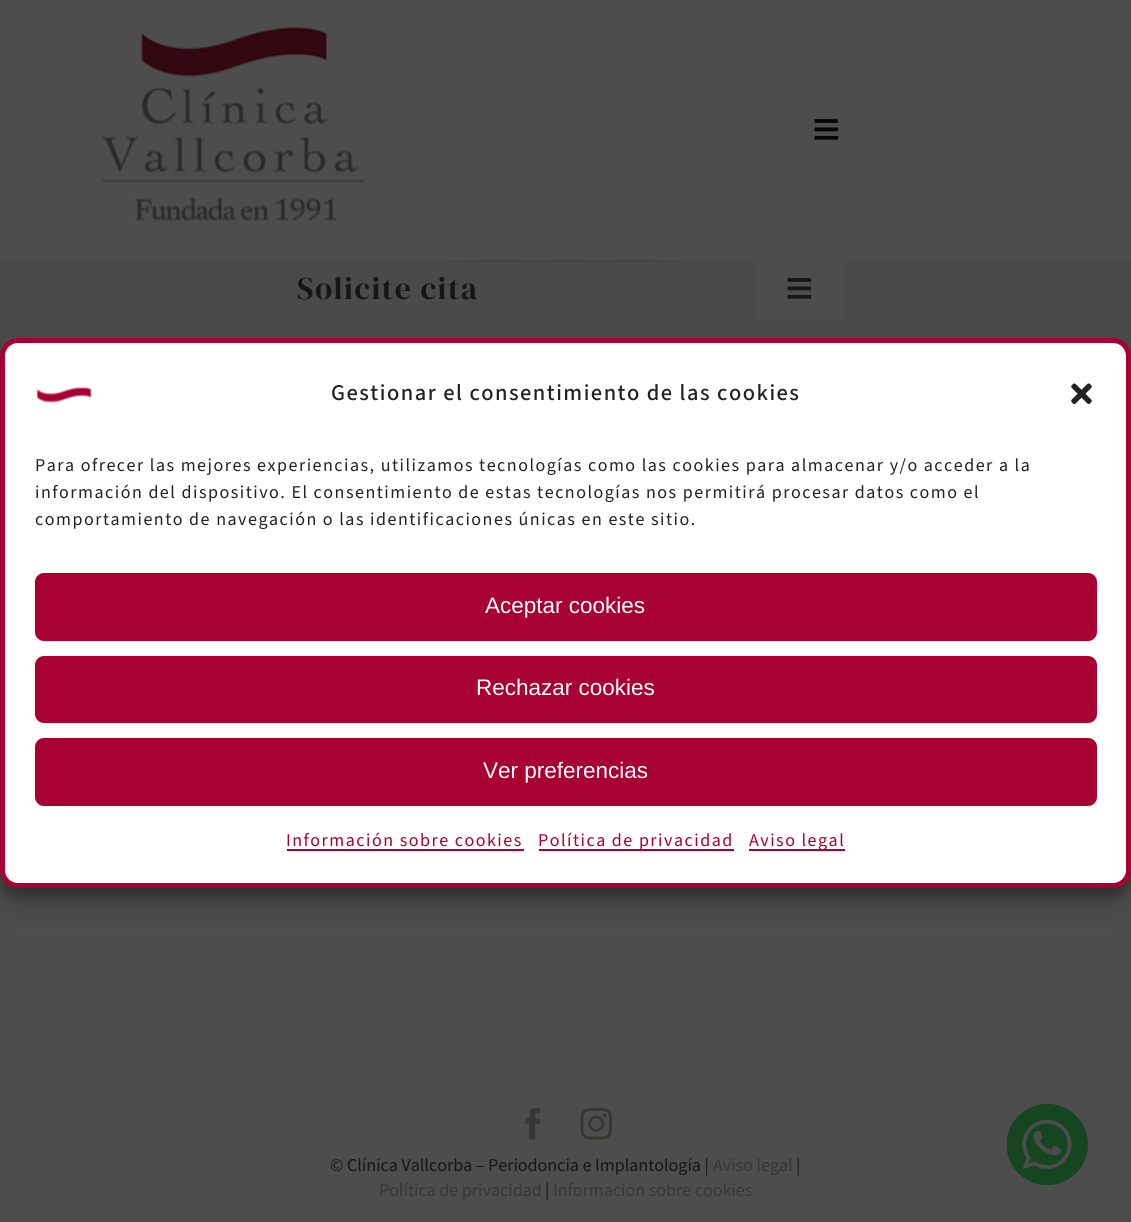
#include <cairo.h>
#include <math.h>
#include <stddef.h>


static void spaced_text(cairo_t *cr, double x, double y, const char *s, double letter, double word) {
    cairo_move_to(cr, x, y);
    while (*s) {
        char ch[5] = {0};
        int n = 0;
        do ch[n++] = *s++; while ((*s & 0xC0) == 0x80);
        cairo_show_text(cr, ch);
        cairo_rel_move_to(cr, letter + word * (*ch == ' '), 0);
    }
}

static void round_rect(cairo_t *cr, double x, double y, double w, double h, double r) {
    cairo_new_sub_path(cr);
    cairo_arc(cr, x + w - r, y + h - r, r, 0, M_PI / 2);
    cairo_arc(cr, x + r, y + h - r, r, M_PI / 2, M_PI);
    cairo_arc(cr, x + r, y + r, r, M_PI, 1.5 * M_PI);
    cairo_arc(cr, x + w - r, y + r, r, 1.5 * M_PI, 2 * M_PI);
    cairo_close_path(cr);
}

static void shadow(cairo_t *cr, double x, double y, double w, double h, double r, double blur, double alpha) {
    cairo_push_group_with_content(cr, CAIRO_CONTENT_ALPHA);
    cairo_set_operator(cr, CAIRO_OPERATOR_SOURCE);
    for (int i = 15; i >= -15 && fmin(w, h) + blur * i / 3 > 0; i -= 2) {
        double e = blur * i / 6;
        cairo_set_source_rgba(cr, 0, 0, 0, alpha * erfc((i - 1) / 8.5) / 2);
        round_rect(cr, x - e, y - e, w + 2 * e, h + 2 * e, fmax(0, fmin(r + e + blur * .6, fmin(w, h) / 2 + e)));
        cairo_fill(cr);
    }
    cairo_pattern_t *soft = cairo_pop_group(cr);
    cairo_mask(cr, soft);
    cairo_pattern_destroy(soft);
}

static void picture(cairo_t *cr, const char *path, double x, double y, double w, double h) {
    cairo_surface_t *image = cairo_image_surface_create_from_png(path);
    cairo_save(cr);
    cairo_set_source_surface(cr, image, x, y);
    cairo_rectangle(cr, x, y, w, h);
    cairo_fill(cr);
    cairo_restore(cr);
    cairo_surface_destroy(image);
}

int main(void) {
    cairo_surface_t *surface = cairo_image_surface_create(CAIRO_FORMAT_RGB24, 1131, 1222);
    cairo_t *cr = cairo_create(surface);
    cairo_font_options_t *options = cairo_font_options_create();
    cairo_font_options_set_hint_metrics(options, CAIRO_HINT_METRICS_OFF);
    cairo_font_options_set_hint_style(options, CAIRO_HINT_STYLE_NONE);
    cairo_set_font_options(cr, options);
    cairo_set_miter_limit(cr, 4);
    cairo_pattern_t *gradient;
    cairo_set_source_rgb(cr, 0.302, 0.302, 0.302);
    cairo_paint(cr);
    picture(cr, "img1.png", 101, 27, 263, 195);
    picture(cr, "img2.png", 814, 119, 25, 21);
    cairo_set_source_rgb(cr, 0.29, 0.29, 0.29);
    cairo_rectangle(cr, 0, 260, 1131, 96);
    cairo_fill(cr);
    cairo_select_font_face(cr, "DM Serif Display", CAIRO_FONT_SLANT_NORMAL, CAIRO_FONT_WEIGHT_NORMAL);
    cairo_set_font_size(cr, 31.5);
    cairo_set_source_rgb(cr, 0.086, 0.086, 0.086);
    spaced_text(cr, 297, 299, "Solicite cita", 1.5, 0);
    gradient = cairo_pattern_create_radial(0, 0, 0, 0, 0, 1);
    cairo_pattern_set_matrix(gradient, &(cairo_matrix_t){1.0 / 368, 0, 0, 1.0 / 19, -1.0 * 566 / 368, -1.0 * 251 / 19});
    cairo_pattern_add_color_stop_rgba(gradient, 0, 0.145, 0.145, 0.145, 1);
    cairo_pattern_add_color_stop_rgba(gradient, 0.65, 0.29, 0.29, 0.29, 1);
    cairo_set_source(cr, gradient);
    cairo_pattern_destroy(gradient);
    cairo_rectangle(cr, 440, 260, 252, 3);
    cairo_fill(cr);
    cairo_set_source_rgb(cr, 0.302, 0.302, 0.302);
    cairo_rectangle(cr, 756, 260, 87, 60);
    cairo_fill(cr);
    picture(cr, "img3.png", 787, 278, 25, 21);
    picture(cr, "img4.png", 525, 1107, 16, 33);
    picture(cr, "img5.png", 580, 1107, 32, 33);
    cairo_select_font_face(cr, "Source Sans 3", CAIRO_FONT_SLANT_NORMAL, CAIRO_FONT_WEIGHT_NORMAL);
    cairo_set_font_size(cr, 18);
    cairo_set_source_rgb(cr, 0.086, 0.086, 0.086);
    cairo_move_to(cr, 330, 1171);
    cairo_show_text(cr, "© Clínica Vallcorba – Periodoncia e Implantología |");
    cairo_set_source_rgb(cr, 0.22, 0.212, 0.2);
    cairo_move_to(cr, 713, 1171);
    cairo_show_text(cr, "Aviso legal");
    cairo_set_source_rgb(cr, 0.086, 0.086, 0.086);
    cairo_move_to(cr, 796, 1171);
    cairo_show_text(cr, "|");
    cairo_set_source_rgb(cr, 0.22, 0.212, 0.2);
    cairo_move_to(cr, 379, 1196);
    cairo_show_text(cr, "Política de privacidad");
    cairo_set_source_rgb(cr, 0.086, 0.086, 0.086);
    cairo_move_to(cr, 545, 1196);
    cairo_show_text(cr, "|");
    cairo_set_source_rgb(cr, 0.22, 0.212, 0.2);
    cairo_move_to(cr, 553, 1196);
    cairo_show_text(cr, "Información sobre cookies");
    cairo_set_source_rgb(cr, 0, 0, 0);
    shadow(cr, 0, 347, 1131, 550, 18, 4.5, 0.23);
    shadow(cr, 0, 353, 1131, 550, 18, 15, 0.19);
    cairo_set_source_rgb(cr, 1, 1, 1);
    round_rect(cr, 2.5, 340.5, 1126, 545, 15.5);
    cairo_fill_preserve(cr);
    cairo_set_source_rgb(cr, 0.663, 0, 0.204);
    cairo_set_line_width(cr, 5);
    cairo_stroke(cr);
    picture(cr, "img6.png", 36, 386, 56, 17);
    cairo_select_font_face(cr, "Source Sans 3 Medium", CAIRO_FONT_SLANT_NORMAL, CAIRO_FONT_WEIGHT_NORMAL);
    cairo_set_font_size(cr, 22.5);
    cairo_set_source_rgb(cr, 0.133, 0.133, 0.133);
    spaced_text(cr, 331, 400, "Gestionar el consentimiento de las cookies", 1.5, 0);
    picture(cr, "img7.png", 1071, 383, 21, 21);
    cairo_select_font_face(cr, "Source Sans 3", CAIRO_FONT_SLANT_NORMAL, CAIRO_FONT_WEIGHT_NORMAL);
    cairo_set_font_size(cr, 18);
    spaced_text(cr, 35, 471, "Para ofrecer las mejores experiencias, utilizamos tecnologías como las cookies para almacenar y/o acceder a la", 1.5, 0);
    spaced_text(cr, 35, 498, "información del dispositivo. El consentimiento de estas tecnologías nos permitirá procesar datos como el", 1.5, 0);
    spaced_text(cr, 35, 525, "comportamiento de navegación o las identificaciones únicas en este sitio.", 1.5, 0);
    cairo_set_source_rgb(cr, 0.663, 0, 0.204);
    round_rect(cr, 36, 574, 1060, 66, 8);
    cairo_fill_preserve(cr);
    cairo_set_line_width(cr, 2);
    cairo_stroke(cr);
    cairo_select_font_face(cr, "Liberation Sans", CAIRO_FONT_SLANT_NORMAL, CAIRO_FONT_WEIGHT_NORMAL);
    cairo_set_font_size(cr, 22.5);
    cairo_set_source_rgb(cr, 1, 1, 1);
    cairo_move_to(cr, 485, 613);
    cairo_show_text(cr, "Aceptar cookies");
    cairo_set_source_rgb(cr, 0.663, 0, 0.204);
    round_rect(cr, 36, 657, 1060, 65, 8);
    cairo_fill_preserve(cr);
    cairo_stroke(cr);
    cairo_set_source_rgb(cr, 1, 1, 1);
    cairo_move_to(cr, 476, 695);
    cairo_show_text(cr, "Rechazar cookies");
    cairo_set_source_rgb(cr, 0.663, 0, 0.204);
    round_rect(cr, 36, 739, 1060, 66, 8);
    cairo_fill_preserve(cr);
    cairo_stroke(cr);
    cairo_set_source_rgb(cr, 1, 1, 1);
    cairo_move_to(cr, 483, 778);
    cairo_show_text(cr, "Ver preferencias");
    cairo_select_font_face(cr, "Source Sans 3", CAIRO_FONT_SLANT_NORMAL, CAIRO_FONT_WEIGHT_NORMAL);
    cairo_set_font_size(cr, 18);
    cairo_set_source_rgb(cr, 0.663, 0, 0.204);
    spaced_text(cr, 286, 846, "Información sobre cookies", 1.5, 0);
    cairo_rectangle(cr, 287, 849, 237, 2);
    cairo_fill(cr);
    cairo_rectangle(cr, 539, 849, 195, 2);
    cairo_fill(cr);
    spaced_text(cr, 538, 846, "Política de privacidad", 1.5, 0);
    cairo_rectangle(cr, 749, 849, 96, 2);
    cairo_fill(cr);
    spaced_text(cr, 749, 846, "Aviso legal", 1.5, 0);
    cairo_set_source_rgb(cr, 0.086, 0.271, 0.133);
    cairo_new_path(cr);
    cairo_arc(cr, 1047.5, 1144.5, 40.5, 0, 2 * M_PI);
    cairo_fill(cr);
    picture(cr, "img8.png", 1007, 1104, 81, 81);
    cairo_surface_write_to_png(surface, "page.png");
    cairo_font_options_destroy(options);
    cairo_destroy(cr);
    cairo_surface_destroy(surface);
    return 0;
}
